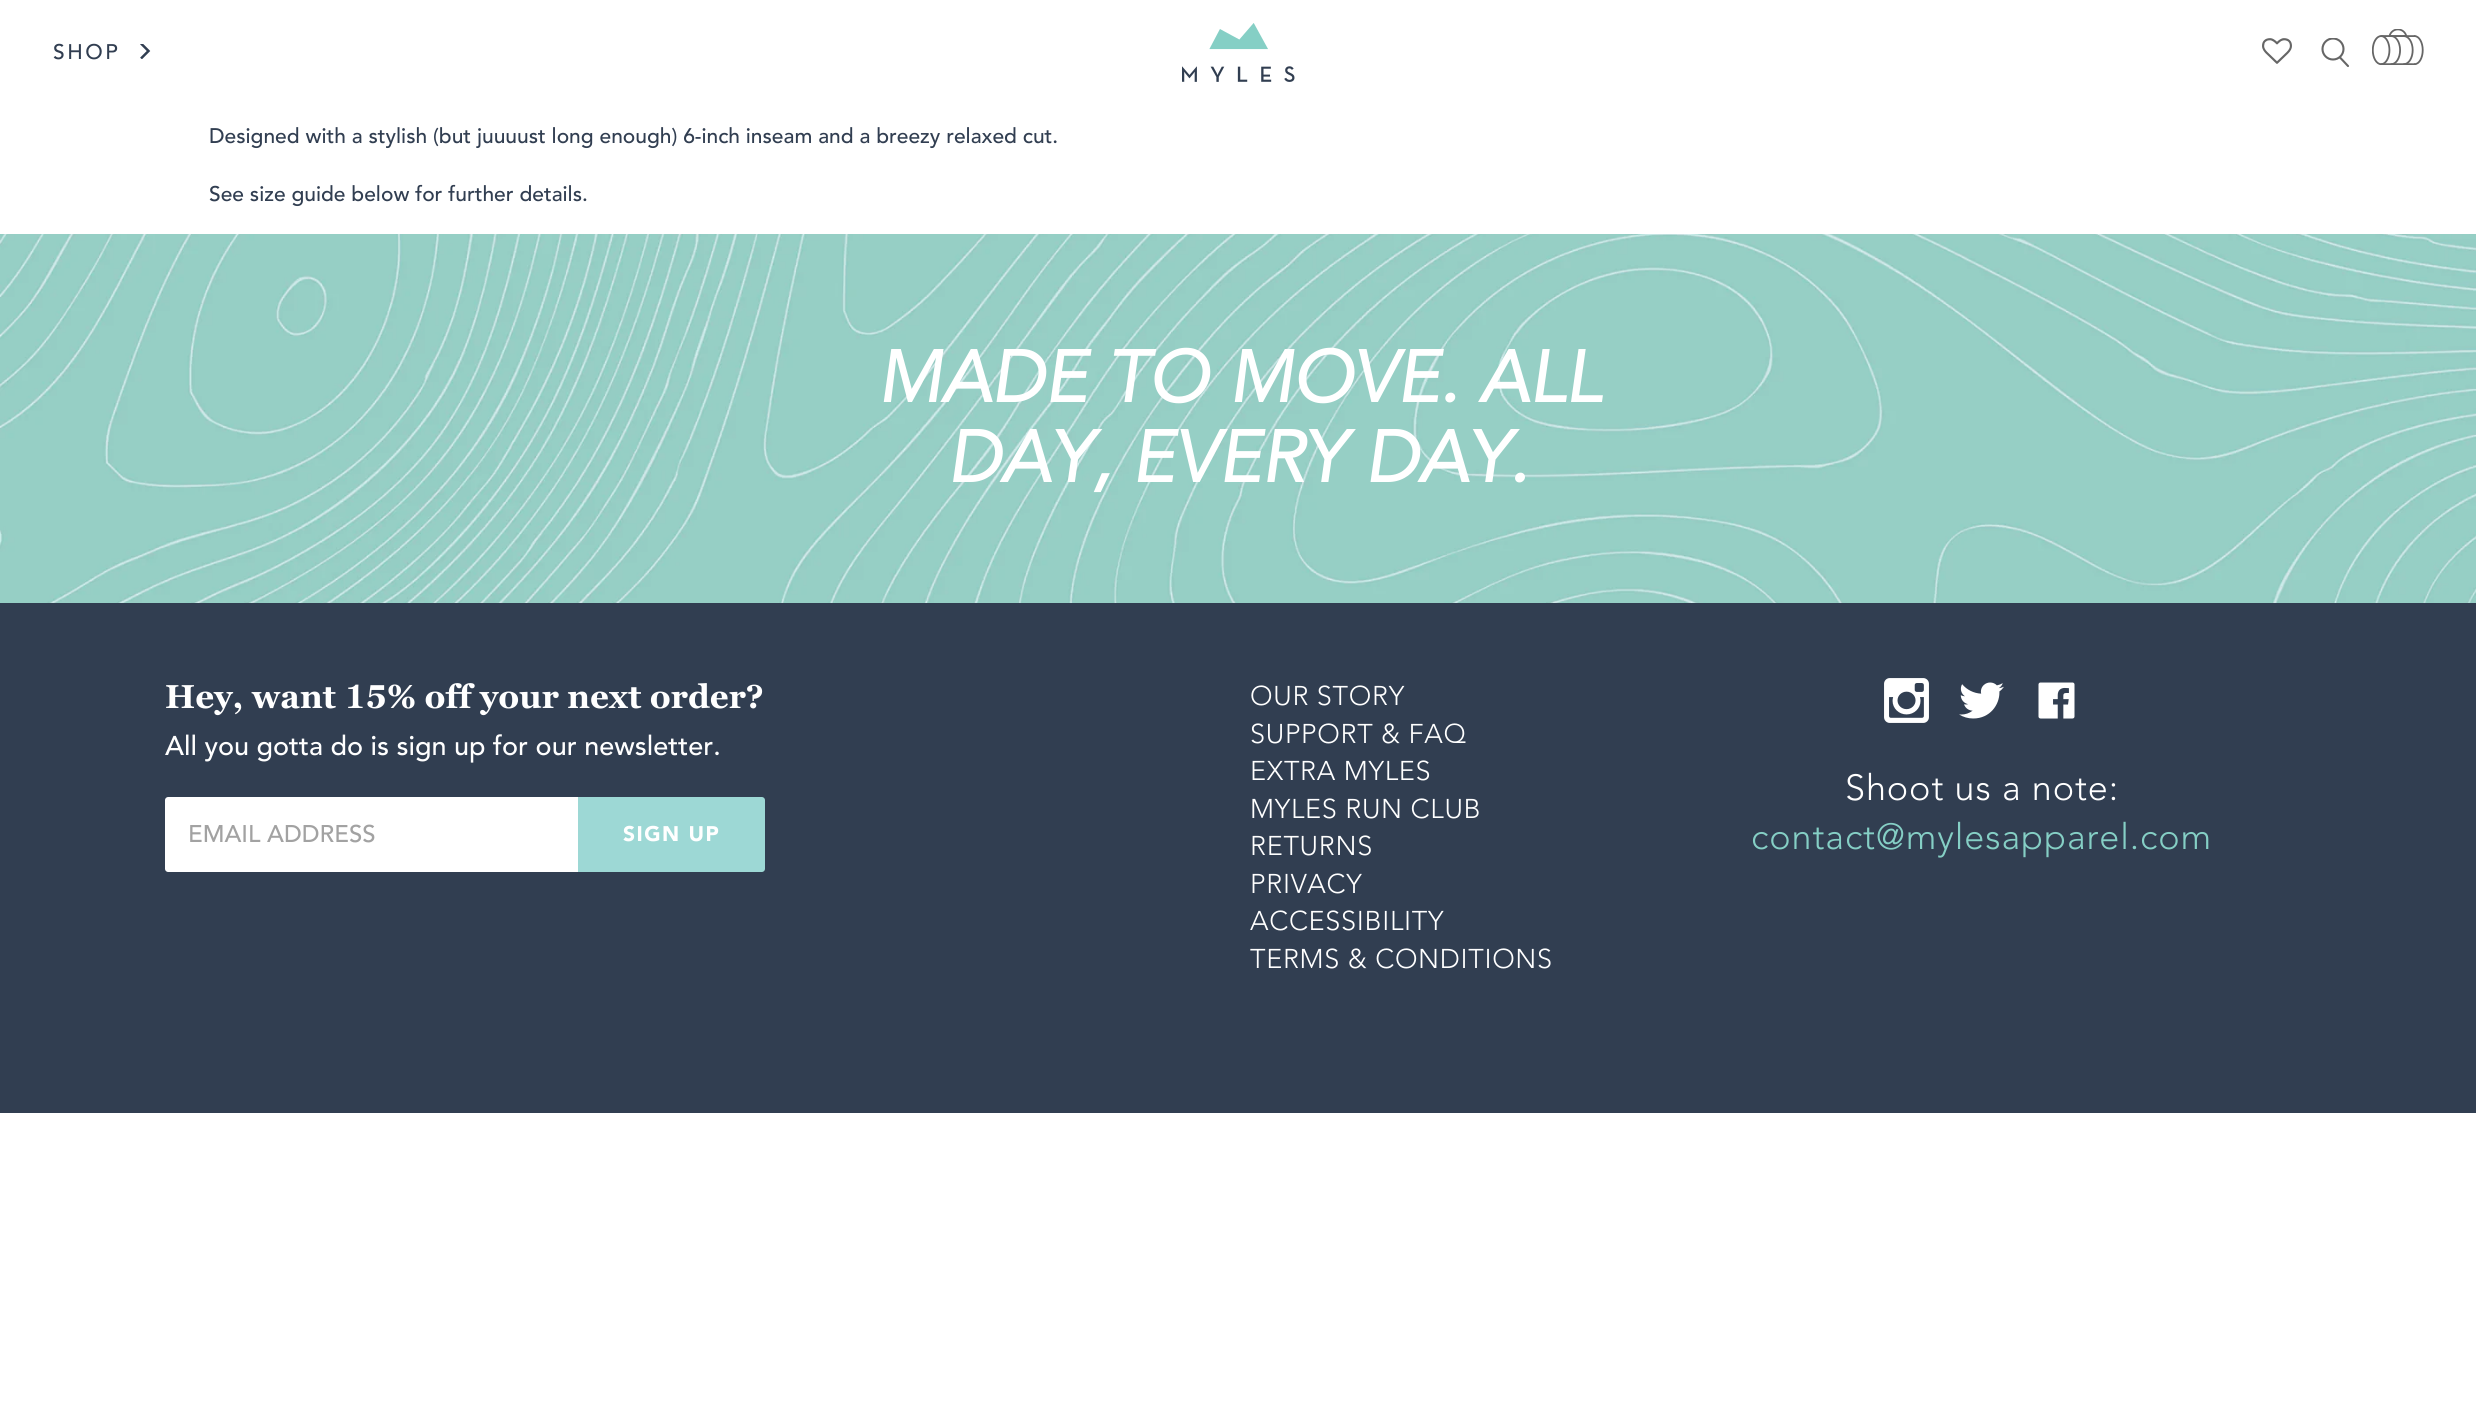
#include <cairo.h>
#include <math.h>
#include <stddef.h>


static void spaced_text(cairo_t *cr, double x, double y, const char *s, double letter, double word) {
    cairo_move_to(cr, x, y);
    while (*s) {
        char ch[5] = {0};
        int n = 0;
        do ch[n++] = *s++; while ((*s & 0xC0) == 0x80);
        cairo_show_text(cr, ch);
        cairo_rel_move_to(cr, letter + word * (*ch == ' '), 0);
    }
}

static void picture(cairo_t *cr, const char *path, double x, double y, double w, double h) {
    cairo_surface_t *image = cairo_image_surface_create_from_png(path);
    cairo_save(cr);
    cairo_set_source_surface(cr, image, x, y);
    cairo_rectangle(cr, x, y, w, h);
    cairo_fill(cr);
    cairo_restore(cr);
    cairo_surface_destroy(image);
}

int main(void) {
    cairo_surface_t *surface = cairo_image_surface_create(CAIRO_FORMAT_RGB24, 2476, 1401);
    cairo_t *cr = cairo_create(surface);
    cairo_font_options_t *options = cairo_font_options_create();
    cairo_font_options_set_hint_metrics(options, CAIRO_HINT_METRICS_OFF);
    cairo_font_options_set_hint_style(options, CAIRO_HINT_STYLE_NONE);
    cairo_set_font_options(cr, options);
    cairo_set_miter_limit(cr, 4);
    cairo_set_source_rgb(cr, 1, 1, 1);
    cairo_paint(cr);
    cairo_select_font_face(cr, "Avenir Medium", CAIRO_FONT_SLANT_NORMAL, CAIRO_FONT_WEIGHT_NORMAL);
    cairo_set_font_size(cr, 21);
    cairo_set_source_rgb(cr, 0.192, 0.243, 0.318);
    spaced_text(cr, 53, 59, "SHOP", 2.5, 0);
    cairo_save(cr);
    cairo_new_path(cr);
    cairo_move_to(cr, 136, 59);
    cairo_line_to(cr, 136, 44);
    cairo_line_to(cr, 151, 44);
    cairo_line_to(cr, 151, 59);
    cairo_close_path(cr);
    cairo_clip(cr);
    cairo_new_path(cr);
    cairo_move_to(cr, 141, 58.5);
    cairo_line_to(cr, 148.5, 51);
    cairo_line_to(cr, 141, 43.5);
    cairo_set_line_width(cr, 2.5);
    cairo_stroke(cr);
    cairo_restore(cr);
    picture(cr, "img1.png", 1182, 23, 113, 59);
    picture(cr, "img2.png", 2262, 38, 30, 26);
    cairo_save(cr);
    cairo_rectangle(cr, 2321, 38, 30, 30);
    cairo_clip(cr);
    cairo_arc(cr, 2333, 49, 10.5, 0, 2 * M_PI);
    cairo_set_source_rgb(cr, 0.4, 0.4, 0.4);
    cairo_set_line_width(cr, 2.1);
    cairo_stroke(cr);
    cairo_restore(cr);
    cairo_new_path(cr);
    cairo_move_to(cr, 2340, 57.5);
    cairo_line_to(cr, 2348, 66);
    cairo_set_source_rgb(cr, 0.4, 0.4, 0.4);
    cairo_set_line_width(cr, 2.1);
    cairo_set_line_cap(cr, CAIRO_LINE_CAP_ROUND);
    cairo_stroke(cr);
    picture(cr, "img3.png", 2372, 29, 52, 36);
    cairo_set_source_rgb(cr, 0.192, 0.243, 0.318);
    cairo_move_to(cr, 209, 143);
    cairo_show_text(cr, "Designed with a stylish (but juuuust long enough) 6-inch inseam and a breezy relaxed cut.");
    cairo_move_to(cr, 209, 201);
    cairo_show_text(cr, "See size guide below for further details.");
    picture(cr, "img4.png", 0, 234, 2476, 369);
    cairo_select_font_face(cr, "Avenir", CAIRO_FONT_SLANT_ITALIC, CAIRO_FONT_WEIGHT_BOLD);
    cairo_set_font_size(cr, 72);
    cairo_set_source_rgb(cr, 1, 1, 1);
    cairo_move_to(cr, 877, 402);
    cairo_show_text(cr, "MADE TO MOVE. ALL");
    cairo_move_to(cr, 947, 482);
    cairo_show_text(cr, "DAY, EVERY DAY.");
    cairo_set_source_rgb(cr, 0.192, 0.243, 0.318);
    cairo_rectangle(cr, 0, 603, 2476, 510);
    cairo_fill(cr);
    cairo_select_font_face(cr, "Georgia", CAIRO_FONT_SLANT_NORMAL, CAIRO_FONT_WEIGHT_BOLD);
    cairo_set_font_size(cr, 33);
    cairo_set_source_rgb(cr, 1, 1, 1);
    cairo_move_to(cr, 165, 708);
    cairo_show_text(cr, "Hey, want 15% off your next order?");
    cairo_select_font_face(cr, "Avenir Medium", CAIRO_FONT_SLANT_NORMAL, CAIRO_FONT_WEIGHT_NORMAL);
    cairo_set_font_size(cr, 27);
    cairo_move_to(cr, 165, 755);
    cairo_show_text(cr, "All you gotta do is sign up for our newsletter.");
    cairo_new_path(cr);
    cairo_move_to(cr, 168, 797);
    cairo_line_to(cr, 578, 797);
    cairo_line_to(cr, 578, 872);
    cairo_line_to(cr, 168, 872);
    cairo_curve_to(cr, 166.5, 872, 165, 870.5, 165, 869);
    cairo_line_to(cr, 165, 800);
    cairo_curve_to(cr, 165, 798.5, 166.5, 797, 168, 797);
    cairo_close_path(cr);
    cairo_fill(cr);
    cairo_set_font_size(cr, 24);
    cairo_set_source_rgb(cr, 0.635, 0.635, 0.635);
    cairo_move_to(cr, 188, 842);
    cairo_show_text(cr, "EMAIL ADDRESS");
    cairo_set_source_rgb(cr, 0.616, 0.847, 0.835);
    cairo_new_path(cr);
    cairo_move_to(cr, 578, 797);
    cairo_line_to(cr, 762, 797);
    cairo_curve_to(cr, 763.5, 797, 765, 798.5, 765, 800);
    cairo_line_to(cr, 765, 869);
    cairo_curve_to(cr, 765, 870.5, 763.5, 872, 762, 872);
    cairo_line_to(cr, 578, 872);
    cairo_close_path(cr);
    cairo_fill(cr);
    cairo_select_font_face(cr, "Avenir Black", CAIRO_FONT_SLANT_NORMAL, CAIRO_FONT_WEIGHT_NORMAL);
    cairo_set_font_size(cr, 21);
    cairo_set_source_rgb(cr, 1, 1, 1);
    spaced_text(cr, 623, 841, "SIGN UP", 1.5, 0);
    cairo_select_font_face(cr, "Avenir Light", CAIRO_FONT_SLANT_NORMAL, CAIRO_FONT_WEIGHT_NORMAL);
    cairo_set_font_size(cr, 27);
    spaced_text(cr, 1250, 705, "OUR STORY", 0.7, 0);
    spaced_text(cr, 1250, 743, "SUPPORT & FAQ", 0.7, 0);
    spaced_text(cr, 1250, 780, "EXTRA MYLES", 0.7, 0);
    spaced_text(cr, 1250, 818, "MYLES RUN CLUB", 0.7, 0);
    spaced_text(cr, 1250, 855, "RETURNS", 0.7, 0);
    spaced_text(cr, 1250, 893, "PRIVACY", 0.7, 0);
    spaced_text(cr, 1250, 930, "ACCESSIBILITY", 0.7, 0);
    spaced_text(cr, 1250, 968, "TERMS & CONDITIONS", 0.7, 0);
    picture(cr, "img5.png", 1884, 678, 45, 45);
    picture(cr, "img6.png", 1959, 682, 45, 37);
    picture(cr, "img7.png", 2038, 682, 37, 37);
    cairo_set_font_size(cr, 36);
    spaced_text(cr, 1845, 800, "Shoot us a note:", 0.9, 0);
    cairo_set_source_rgb(cr, 0.522, 0.812, 0.773);
    spaced_text(cr, 1751, 849, "contact@mylesapparel.com", 0.9, 0);
    cairo_surface_write_to_png(surface, "page.png");
    cairo_font_options_destroy(options);
    cairo_destroy(cr);
    cairo_surface_destroy(surface);
    return 0;
}
